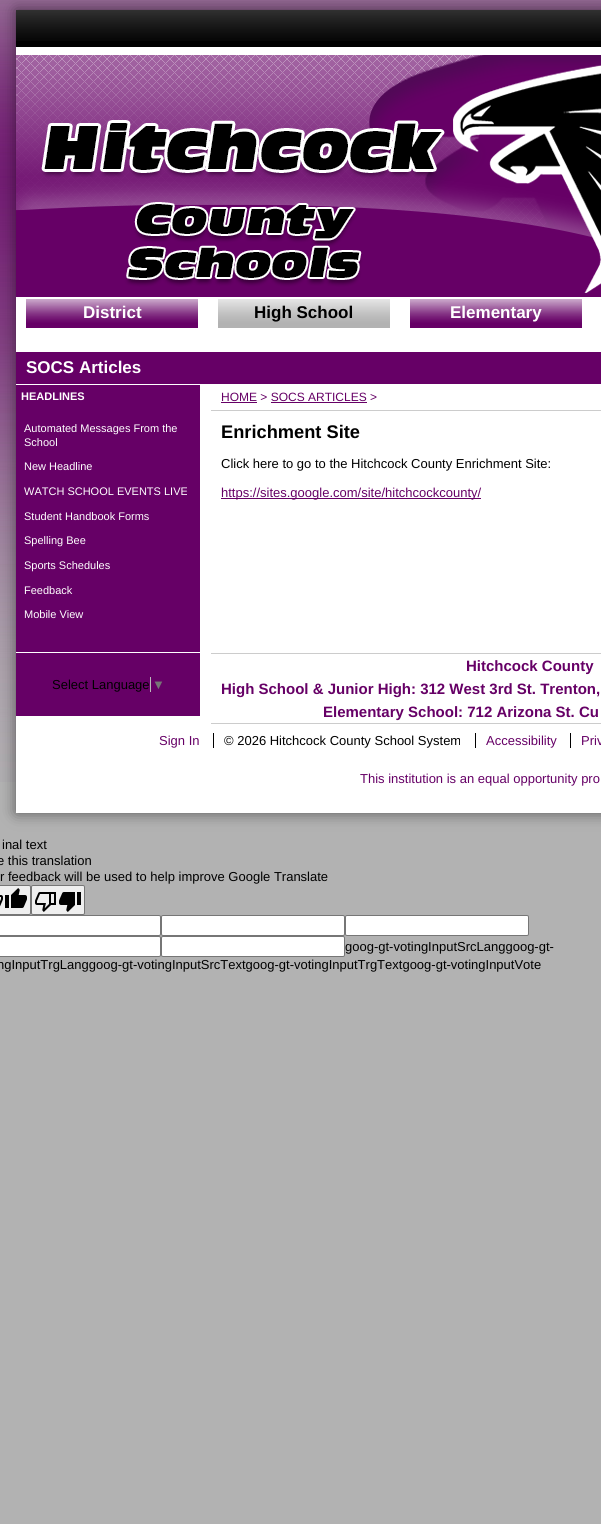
#include <cairo.h>
#include <math.h>
#include <stddef.h>


static void round_rect(cairo_t *cr, double x, double y, double w, double h, double r) {
    cairo_new_sub_path(cr);
    cairo_arc(cr, x + w - r, y + h - r, r, 0, M_PI / 2);
    cairo_arc(cr, x + r, y + h - r, r, M_PI / 2, M_PI);
    cairo_arc(cr, x + r, y + r, r, M_PI, 1.5 * M_PI);
    cairo_arc(cr, x + w - r, y + r, r, 1.5 * M_PI, 2 * M_PI);
    cairo_close_path(cr);
}

static void shadow(cairo_t *cr, double x, double y, double w, double h, double r, double blur, double alpha) {
    cairo_push_group_with_content(cr, CAIRO_CONTENT_ALPHA);
    cairo_set_operator(cr, CAIRO_OPERATOR_SOURCE);
    for (int i = 15; i >= -15 && fmin(w, h) + blur * i / 3 > 0; i -= 2) {
        double e = blur * i / 6;
        cairo_set_source_rgba(cr, 0, 0, 0, alpha * erfc((i - 1) / 8.5) / 2);
        round_rect(cr, x - e, y - e, w + 2 * e, h + 2 * e, fmax(0, fmin(r + e + blur * .6, fmin(w, h) / 2 + e)));
        cairo_fill(cr);
    }
    cairo_pattern_t *soft = cairo_pop_group(cr);
    cairo_mask(cr, soft);
    cairo_pattern_destroy(soft);
}

static void picture(cairo_t *cr, const char *path, double x, double y, double w, double h) {
    cairo_surface_t *image = cairo_image_surface_create_from_png(path);
    cairo_save(cr);
    cairo_set_source_surface(cr, image, x, y);
    cairo_rectangle(cr, x, y, w, h);
    cairo_fill(cr);
    cairo_restore(cr);
    cairo_surface_destroy(image);
}

int main(void) {
    cairo_surface_t *surface = cairo_image_surface_create(CAIRO_FORMAT_RGB24, 601, 1524);
    cairo_t *cr = cairo_create(surface);
    cairo_font_options_t *options = cairo_font_options_create();
    cairo_font_options_set_hint_metrics(options, CAIRO_HINT_METRICS_OFF);
    cairo_font_options_set_hint_style(options, CAIRO_HINT_STYLE_NONE);
    cairo_set_font_options(cr, options);
    cairo_set_miter_limit(cr, 4);
    cairo_set_source_rgb(cr, 0.698, 0.698, 0.698);
    cairo_paint(cr);
    picture(cr, "img1.png", 0, 0, 601, 782);
    cairo_set_source_rgb(cr, 0, 0, 0);
    shadow(cr, 16, 10, 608, 803, 0, 7.5, 0.5);
    picture(cr, "img2.png", 16, 10, 585, 37);
    picture(cr, "img3.png", 16, 47, 585, 250);
    cairo_set_source_rgb(cr, 1, 1, 1);
    cairo_rectangle(cr, 16, 297, 585, 516);
    cairo_fill(cr);
    picture(cr, "img4.png", 26, 299, 556, 29);
    cairo_select_font_face(cr, "Liberation Sans", CAIRO_FONT_SLANT_NORMAL, CAIRO_FONT_WEIGHT_BOLD);
    cairo_set_font_size(cr, 17);
    cairo_move_to(cr, 83, 318);
    cairo_show_text(cr, "District");
    cairo_set_source_rgb(cr, 0, 0, 0);
    cairo_move_to(cr, 254, 318);
    cairo_show_text(cr, "High School");
    cairo_set_source_rgb(cr, 1, 1, 1);
    cairo_move_to(cr, 450, 318);
    cairo_show_text(cr, "Elementary");
    cairo_set_source_rgb(cr, 0.4, 0, 0.4);
    cairo_rectangle(cr, 16, 385, 184, 267);
    cairo_fill(cr);
    cairo_rectangle(cr, 16, 352, 585, 32);
    cairo_fill(cr);
    cairo_set_source_rgb(cr, 1, 1, 1);
    cairo_move_to(cr, 26, 373);
    cairo_show_text(cr, "SOCS Articles");
    cairo_set_font_size(cr, 11);
    cairo_move_to(cr, 21, 400);
    cairo_show_text(cr, "HEADLINES");
    cairo_select_font_face(cr, "Liberation Sans", CAIRO_FONT_SLANT_NORMAL, CAIRO_FONT_WEIGHT_NORMAL);
    cairo_move_to(cr, 24, 432);
    cairo_show_text(cr, "Automated Messages From the");
    cairo_move_to(cr, 24, 446);
    cairo_show_text(cr, "School");
    cairo_move_to(cr, 24, 470);
    cairo_show_text(cr, "New Headline");
    cairo_move_to(cr, 24, 495);
    cairo_show_text(cr, "WATCH SCHOOL EVENTS LIVE");
    cairo_move_to(cr, 24, 520);
    cairo_show_text(cr, "Student Handbook Forms");
    cairo_move_to(cr, 24, 544);
    cairo_show_text(cr, "Spelling Bee");
    cairo_move_to(cr, 24, 569);
    cairo_show_text(cr, "Sports Schedules");
    cairo_move_to(cr, 24, 594);
    cairo_show_text(cr, "Feedback");
    cairo_move_to(cr, 24, 618);
    cairo_show_text(cr, "Mobile View");
    cairo_set_source_rgb(cr, 0.8, 0.8, 0.8);
    cairo_rectangle(cr, 211, 410, 390, 1);
    cairo_fill(cr);
    cairo_set_font_size(cr, 12);
    cairo_set_source_rgb(cr, 0.4, 0, 0.4);
    cairo_move_to(cr, 221, 401);
    cairo_show_text(cr, "HOME > SOCS ARTICLES >");
    cairo_rectangle(cr, 221, 402, 36, 1);
    cairo_fill(cr);
    cairo_rectangle(cr, 271, 402, 96, 1);
    cairo_fill(cr);
    cairo_select_font_face(cr, "Liberation Sans", CAIRO_FONT_SLANT_NORMAL, CAIRO_FONT_WEIGHT_BOLD);
    cairo_set_font_size(cr, 18.25);
    cairo_set_source_rgb(cr, 0, 0, 0);
    cairo_move_to(cr, 221, 438);
    cairo_show_text(cr, "Enrichment Site");
    cairo_select_font_face(cr, "Liberation Sans", CAIRO_FONT_SLANT_NORMAL, CAIRO_FONT_WEIGHT_NORMAL);
    cairo_set_font_size(cr, 13);
    cairo_move_to(cr, 221, 468);
    cairo_show_text(cr, "Click here to go to the Hitchcock County Enrichment Site:");
    cairo_set_source_rgb(cr, 0.4, 0, 0.4);
    cairo_rectangle(cr, 221, 498, 260, 1);
    cairo_fill(cr);
    cairo_move_to(cr, 221, 497);
    cairo_show_text(cr, "https://sites.google.com/site/hitchcockcounty/");
    cairo_rectangle(cr, 16, 653, 184, 63);
    cairo_fill(cr);
    cairo_set_source_rgb(cr, 0, 0, 0);
    cairo_move_to(cr, 52, 689);
    cairo_show_text(cr, "Select Language");
    cairo_set_source_rgb(cr, 0.733, 0.733, 0.733);
    cairo_rectangle(cr, 150, 677, 1, 15);
    cairo_fill(cr);
    cairo_set_source_rgb(cr, 0.463, 0.463, 0.463);
    cairo_move_to(cr, 152, 689);
    cairo_show_text(cr, "▼");
    cairo_set_source_rgb(cr, 0.8, 0.8, 0.8);
    cairo_rectangle(cr, 211, 653, 390, 1);
    cairo_fill(cr);
    cairo_rectangle(cr, 211, 723, 390, 1);
    cairo_fill(cr);
    cairo_select_font_face(cr, "Liberation Sans", CAIRO_FONT_SLANT_NORMAL, CAIRO_FONT_WEIGHT_BOLD);
    cairo_set_font_size(cr, 15);
    cairo_set_source_rgb(cr, 0.4, 0, 0.4);
    cairo_move_to(cr, 466, 671);
    cairo_show_text(cr, "Hitchcock County");
    cairo_move_to(cr, 221, 694);
    cairo_show_text(cr, "High School & Junior High: 312 West 3rd St. Trenton,");
    cairo_move_to(cr, 323, 717);
    cairo_show_text(cr, "Elementary School: 712 Arizona St. Cu");
    cairo_select_font_face(cr, "Liberation Sans", CAIRO_FONT_SLANT_NORMAL, CAIRO_FONT_WEIGHT_NORMAL);
    cairo_set_font_size(cr, 13);
    cairo_move_to(cr, 159, 745);
    cairo_show_text(cr, "Sign In");
    cairo_set_source_rgb(cr, 0, 0, 0);
    cairo_move_to(cr, 224, 745);
    cairo_show_text(cr, "© 2026 Hitchcock County School System");
    cairo_rectangle(cr, 213, 733, 1, 15);
    cairo_fill(cr);
    cairo_set_source_rgb(cr, 0.4, 0, 0.4);
    cairo_move_to(cr, 486, 745);
    cairo_show_text(cr, "Accessibility");
    cairo_set_source_rgb(cr, 0, 0, 0);
    cairo_rectangle(cr, 475, 733, 1, 15);
    cairo_fill(cr);
    cairo_set_source_rgb(cr, 0.4, 0, 0.4);
    cairo_move_to(cr, 581, 745);
    cairo_show_text(cr, "Priv");
    cairo_set_source_rgb(cr, 0, 0, 0);
    cairo_rectangle(cr, 570, 733, 1, 15);
    cairo_fill(cr);
    cairo_set_source_rgb(cr, 0.4, 0, 0.4);
    cairo_move_to(cr, 360, 783);
    cairo_show_text(cr, "This institution is an equal opportunity pro");
    cairo_set_source_rgb(cr, 0, 0, 0);
    cairo_move_to(cr, 2, 849);
    cairo_show_text(cr, "inal text");
    cairo_move_to(cr, -3, 865);
    cairo_show_text(cr, "e this translation");
    cairo_move_to(cr, 0, 881);
    cairo_show_text(cr, "r feedback will be used to help improve Google Translate");
    cairo_set_source_rgb(cr, 0.937, 0.937, 0.937);
    round_rect(cr, -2.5, 885.5, 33, 29, 1.5);
    cairo_fill_preserve(cr);
    cairo_set_source_rgb(cr, 0.463, 0.463, 0.463);
    cairo_set_line_width(cr, 1);
    cairo_stroke(cr);
    picture(cr, "img5.png", 0, 895, 3, 12);
    picture(cr, "img6.png", 5, 888, 22, 20);
    cairo_set_source_rgb(cr, 0.937, 0.937, 0.937);
    round_rect(cr, 31.5, 885.5, 53, 29, 1.5);
    cairo_fill_preserve(cr);
    cairo_set_source_rgb(cr, 0.463, 0.463, 0.463);
    cairo_stroke(cr);
    picture(cr, "img7.png", 35, 892, 21, 20);
    picture(cr, "img8.png", 59, 892, 22, 20);
    cairo_set_source_rgb(cr, 1, 1, 1);
    round_rect(cr, -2.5, 915.5, 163, 20, 1.5);
    cairo_fill_preserve(cr);
    cairo_set_source_rgb(cr, 0.463, 0.463, 0.463);
    cairo_stroke(cr);
    cairo_set_source_rgb(cr, 1, 1, 1);
    round_rect(cr, 161.5, 915.5, 183, 20, 1.5);
    cairo_fill_preserve(cr);
    cairo_set_source_rgb(cr, 0.463, 0.463, 0.463);
    cairo_stroke(cr);
    cairo_set_source_rgb(cr, 1, 1, 1);
    round_rect(cr, 345.5, 915.5, 183, 20, 1.5);
    cairo_fill_preserve(cr);
    cairo_set_source_rgb(cr, 0.463, 0.463, 0.463);
    cairo_stroke(cr);
    cairo_set_source_rgb(cr, 1, 1, 1);
    round_rect(cr, -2.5, 936.5, 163, 20, 1.5);
    cairo_fill_preserve(cr);
    cairo_set_source_rgb(cr, 0.463, 0.463, 0.463);
    cairo_stroke(cr);
    cairo_set_source_rgb(cr, 1, 1, 1);
    round_rect(cr, 161.5, 936.5, 183, 20, 1.5);
    cairo_fill_preserve(cr);
    cairo_set_source_rgb(cr, 0.463, 0.463, 0.463);
    cairo_stroke(cr);
    cairo_set_source_rgb(cr, 0, 0, 0);
    cairo_move_to(cr, 345, 951);
    cairo_show_text(cr, "goog-gt-votingInputSrcLanggoog-gt-");
    cairo_move_to(cr, -3, 969);
    cairo_show_text(cr, "ngInputTrgLanggoog-gt-votingInputSrcTextgoog-gt-votingInputTrgTextgoog-gt-votingInputVote");
    cairo_surface_write_to_png(surface, "page.png");
    cairo_font_options_destroy(options);
    cairo_destroy(cr);
    cairo_surface_destroy(surface);
    return 0;
}
